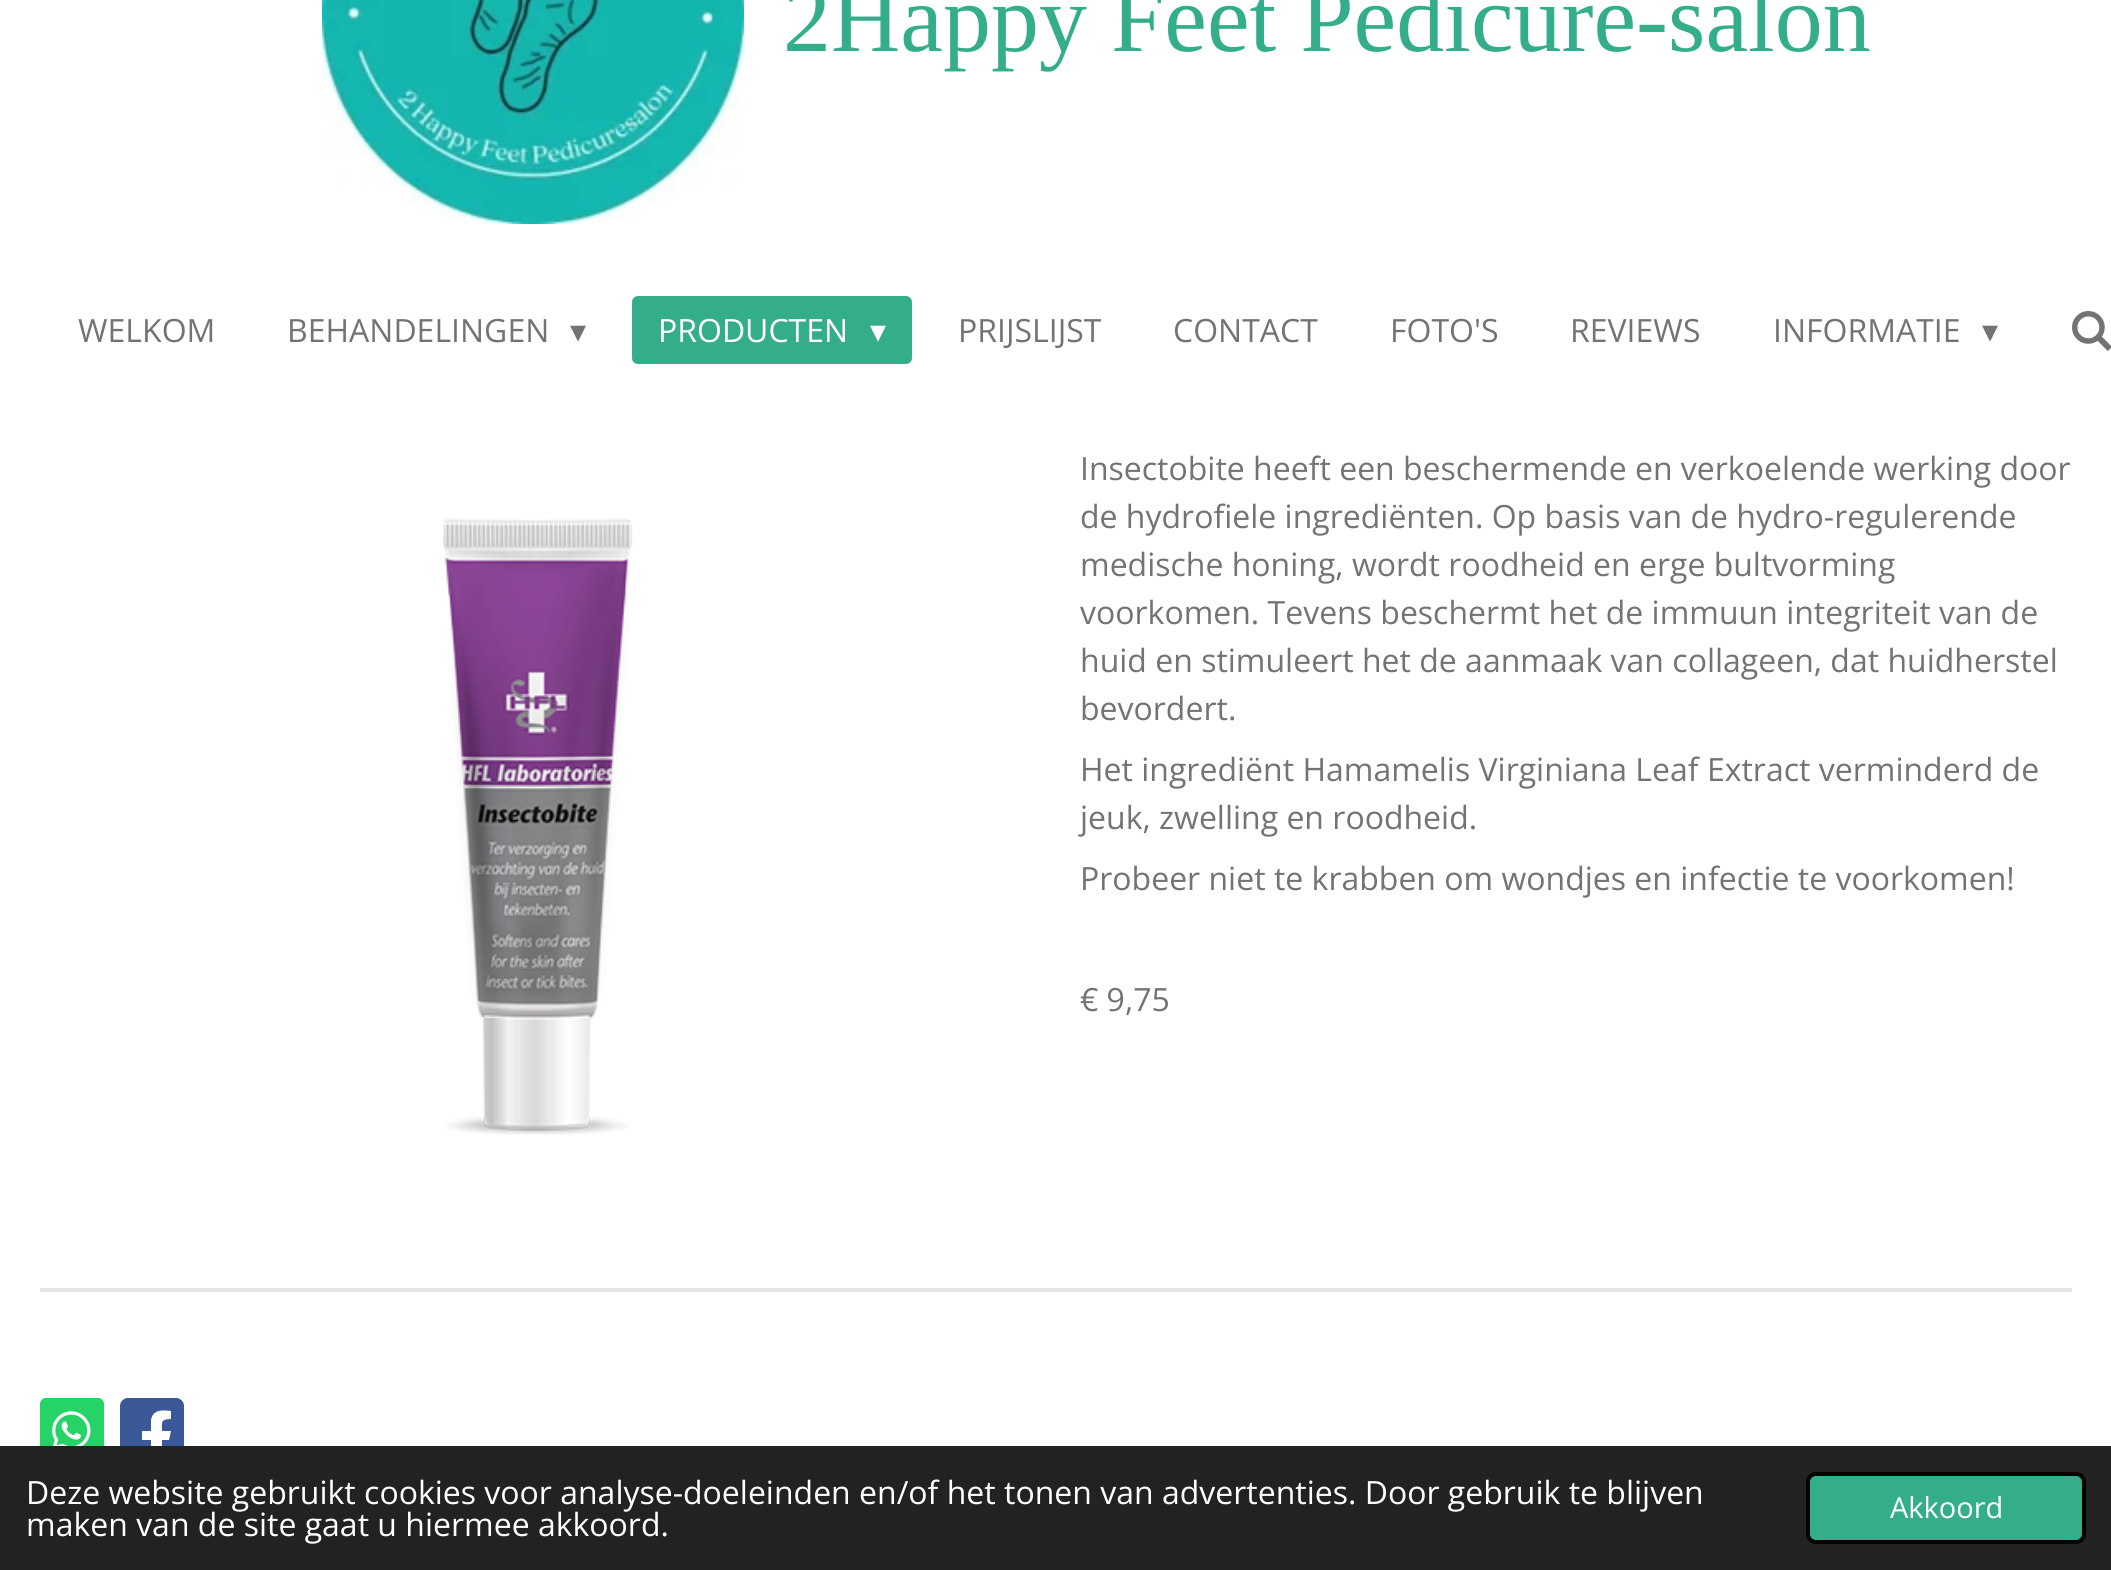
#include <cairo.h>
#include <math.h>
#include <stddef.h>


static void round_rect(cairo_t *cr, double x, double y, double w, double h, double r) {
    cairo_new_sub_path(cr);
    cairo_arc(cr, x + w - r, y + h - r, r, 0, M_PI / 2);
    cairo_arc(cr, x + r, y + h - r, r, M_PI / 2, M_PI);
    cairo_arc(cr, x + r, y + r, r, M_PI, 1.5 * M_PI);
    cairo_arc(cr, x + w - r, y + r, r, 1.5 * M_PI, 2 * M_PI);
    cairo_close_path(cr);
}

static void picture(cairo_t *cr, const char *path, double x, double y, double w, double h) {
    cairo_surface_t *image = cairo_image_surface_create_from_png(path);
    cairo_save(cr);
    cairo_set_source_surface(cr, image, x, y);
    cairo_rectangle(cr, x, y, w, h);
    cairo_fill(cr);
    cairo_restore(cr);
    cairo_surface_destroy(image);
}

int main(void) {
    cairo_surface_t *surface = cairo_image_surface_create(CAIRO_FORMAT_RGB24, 2111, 1570);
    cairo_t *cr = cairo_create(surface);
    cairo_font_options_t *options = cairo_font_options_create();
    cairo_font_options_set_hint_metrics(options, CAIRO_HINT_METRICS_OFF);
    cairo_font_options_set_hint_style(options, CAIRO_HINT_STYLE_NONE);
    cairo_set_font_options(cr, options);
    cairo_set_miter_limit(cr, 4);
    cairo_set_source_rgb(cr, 1, 1, 1);
    cairo_paint(cr);
    picture(cr, "img1.png", 322, 0, 422, 224);
    cairo_select_font_face(cr, "Liberation Serif", CAIRO_FONT_SLANT_NORMAL, CAIRO_FONT_WEIGHT_NORMAL);
    cairo_set_font_size(cr, 96);
    cairo_set_source_rgb(cr, 0.204, 0.682, 0.541);
    cairo_move_to(cr, 783, 51);
    cairo_show_text(cr, "2Happy Feet Pedicure-salon");
    cairo_select_font_face(cr, "Open Sans", CAIRO_FONT_SLANT_NORMAL, CAIRO_FONT_WEIGHT_NORMAL);
    cairo_set_font_size(cr, 32);
    cairo_set_source_rgb(cr, 0.451, 0.451, 0.451);
    cairo_move_to(cr, 78, 342);
    cairo_show_text(cr, "WELKOM");
    cairo_move_to(cr, 287, 342);
    cairo_show_text(cr, "BEHANDELINGEN");
    cairo_select_font_face(cr, "DejaVu Sans", CAIRO_FONT_SLANT_NORMAL, CAIRO_FONT_WEIGHT_NORMAL);
    cairo_move_to(cr, 570, 342);
    cairo_show_text(cr, "▾");
    cairo_set_source_rgb(cr, 0.204, 0.682, 0.541);
    round_rect(cr, 632, 296, 280, 68, 6);
    cairo_fill(cr);
    cairo_select_font_face(cr, "Open Sans", CAIRO_FONT_SLANT_NORMAL, CAIRO_FONT_WEIGHT_NORMAL);
    cairo_set_source_rgb(cr, 1, 1, 1);
    cairo_move_to(cr, 658, 342);
    cairo_show_text(cr, "PRODUCTEN");
    cairo_select_font_face(cr, "DejaVu Sans", CAIRO_FONT_SLANT_NORMAL, CAIRO_FONT_WEIGHT_NORMAL);
    cairo_move_to(cr, 870, 342);
    cairo_show_text(cr, "▾");
    cairo_select_font_face(cr, "Open Sans", CAIRO_FONT_SLANT_NORMAL, CAIRO_FONT_WEIGHT_NORMAL);
    cairo_set_source_rgb(cr, 0.451, 0.451, 0.451);
    cairo_move_to(cr, 958, 342);
    cairo_show_text(cr, "PRIJSLIJST");
    cairo_move_to(cr, 1173, 342);
    cairo_show_text(cr, "CONTACT");
    cairo_move_to(cr, 1390, 342);
    cairo_show_text(cr, "FOTO'S");
    cairo_move_to(cr, 1570, 342);
    cairo_show_text(cr, "REVIEWS");
    cairo_move_to(cr, 1773, 342);
    cairo_show_text(cr, "INFORMATIE");
    cairo_select_font_face(cr, "DejaVu Sans", CAIRO_FONT_SLANT_NORMAL, CAIRO_FONT_WEIGHT_NORMAL);
    cairo_move_to(cr, 1982, 342);
    cairo_show_text(cr, "▾");
    picture(cr, "img2.png", 2072, 311, 39, 40);
    picture(cr, "img3.png", 443, 518, 190, 617);
    cairo_select_font_face(cr, "Open Sans", CAIRO_FONT_SLANT_NORMAL, CAIRO_FONT_WEIGHT_NORMAL);
    cairo_move_to(cr, 1080, 480);
    cairo_show_text(cr, "Insectobite heeft een beschermende en verkoelende werking door");
    cairo_move_to(cr, 1080, 528);
    cairo_show_text(cr, "de hydrofiele ingrediënten. Op basis van de hydro-regulerende");
    cairo_move_to(cr, 1080, 576);
    cairo_show_text(cr, "medische honing, wordt roodheid en erge bultvorming");
    cairo_move_to(cr, 1080, 624);
    cairo_show_text(cr, "voorkomen. Tevens beschermt het de immuun integriteit van de");
    cairo_move_to(cr, 1080, 672);
    cairo_show_text(cr, "huid en stimuleert het de aanmaak van collageen, dat huidherstel");
    cairo_move_to(cr, 1080, 720);
    cairo_show_text(cr, "bevordert.");
    cairo_move_to(cr, 1080, 781);
    cairo_show_text(cr, "Het ingrediënt Hamamelis Virginiana Leaf Extract verminderd de");
    cairo_move_to(cr, 1080, 829);
    cairo_show_text(cr, "jeuk, zwelling en roodheid.");
    cairo_move_to(cr, 1080, 890);
    cairo_show_text(cr, "Probeer niet te krabben om wondjes en infectie te voorkomen!");
    cairo_move_to(cr, 1080, 1011);
    cairo_show_text(cr, "€ 9,75");
    cairo_set_source_rgb(cr, 0.902, 0.902, 0.902);
    cairo_rectangle(cr, 40, 1288, 2032, 4);
    cairo_fill(cr);
    cairo_set_source_rgb(cr, 0.145, 0.827, 0.4);
    round_rect(cr, 40, 1398, 64, 64, 6);
    cairo_fill(cr);
    picture(cr, "img4.png", 52, 1411, 39, 35);
    cairo_set_source_rgb(cr, 0.231, 0.349, 0.596);
    round_rect(cr, 120, 1398, 64, 64, 8);
    cairo_fill(cr);
    cairo_set_source_rgb(cr, 1, 1, 1);
    cairo_new_path(cr);
    cairo_move_to(cr, 169, 1440);
    cairo_line_to(cr, 162, 1440);
    cairo_line_to(cr, 162, 1462);
    cairo_line_to(cr, 151, 1462);
    cairo_line_to(cr, 151, 1440);
    cairo_line_to(cr, 142, 1440);
    cairo_line_to(cr, 142, 1431);
    cairo_line_to(cr, 151, 1431);
    cairo_line_to(cr, 151, 1420);
    cairo_curve_to(cr, 153, 1409, 163, 1410, 171, 1411);
    cairo_line_to(cr, 171, 1419);
    cairo_curve_to(cr, 160, 1419, 162, 1423, 162, 1431);
    cairo_line_to(cr, 171, 1431);
    cairo_close_path(cr);
    cairo_fill(cr);
    cairo_set_source_rgb(cr, 0.133, 0.133, 0.133);
    cairo_rectangle(cr, 0, 1446, 2111, 124);
    cairo_fill(cr);
    cairo_set_source_rgb(cr, 1, 1, 1);
    cairo_move_to(cr, 26, 1504);
    cairo_show_text(cr, "Deze website gebruikt cookies voor analyse-doeleinden en/of het tonen van advertenties. Door gebruik te blijven");
    cairo_move_to(cr, 26, 1536);
    cairo_show_text(cr, "maken van de site gaat u hiermee akkoord.");
    cairo_set_source_rgb(cr, 0.204, 0.682, 0.541);
    round_rect(cr, 1808, 1474, 276, 68, 8);
    cairo_fill_preserve(cr);
    cairo_set_source_rgb(cr, 0, 0, 0);
    cairo_set_line_width(cr, 4);
    cairo_stroke(cr);
    cairo_set_font_size(cr, 29);
    cairo_set_source_rgb(cr, 1, 1, 1);
    cairo_move_to(cr, 1890, 1518);
    cairo_show_text(cr, "Akkoord");
    cairo_surface_write_to_png(surface, "page.png");
    cairo_font_options_destroy(options);
    cairo_destroy(cr);
    cairo_surface_destroy(surface);
    return 0;
}
